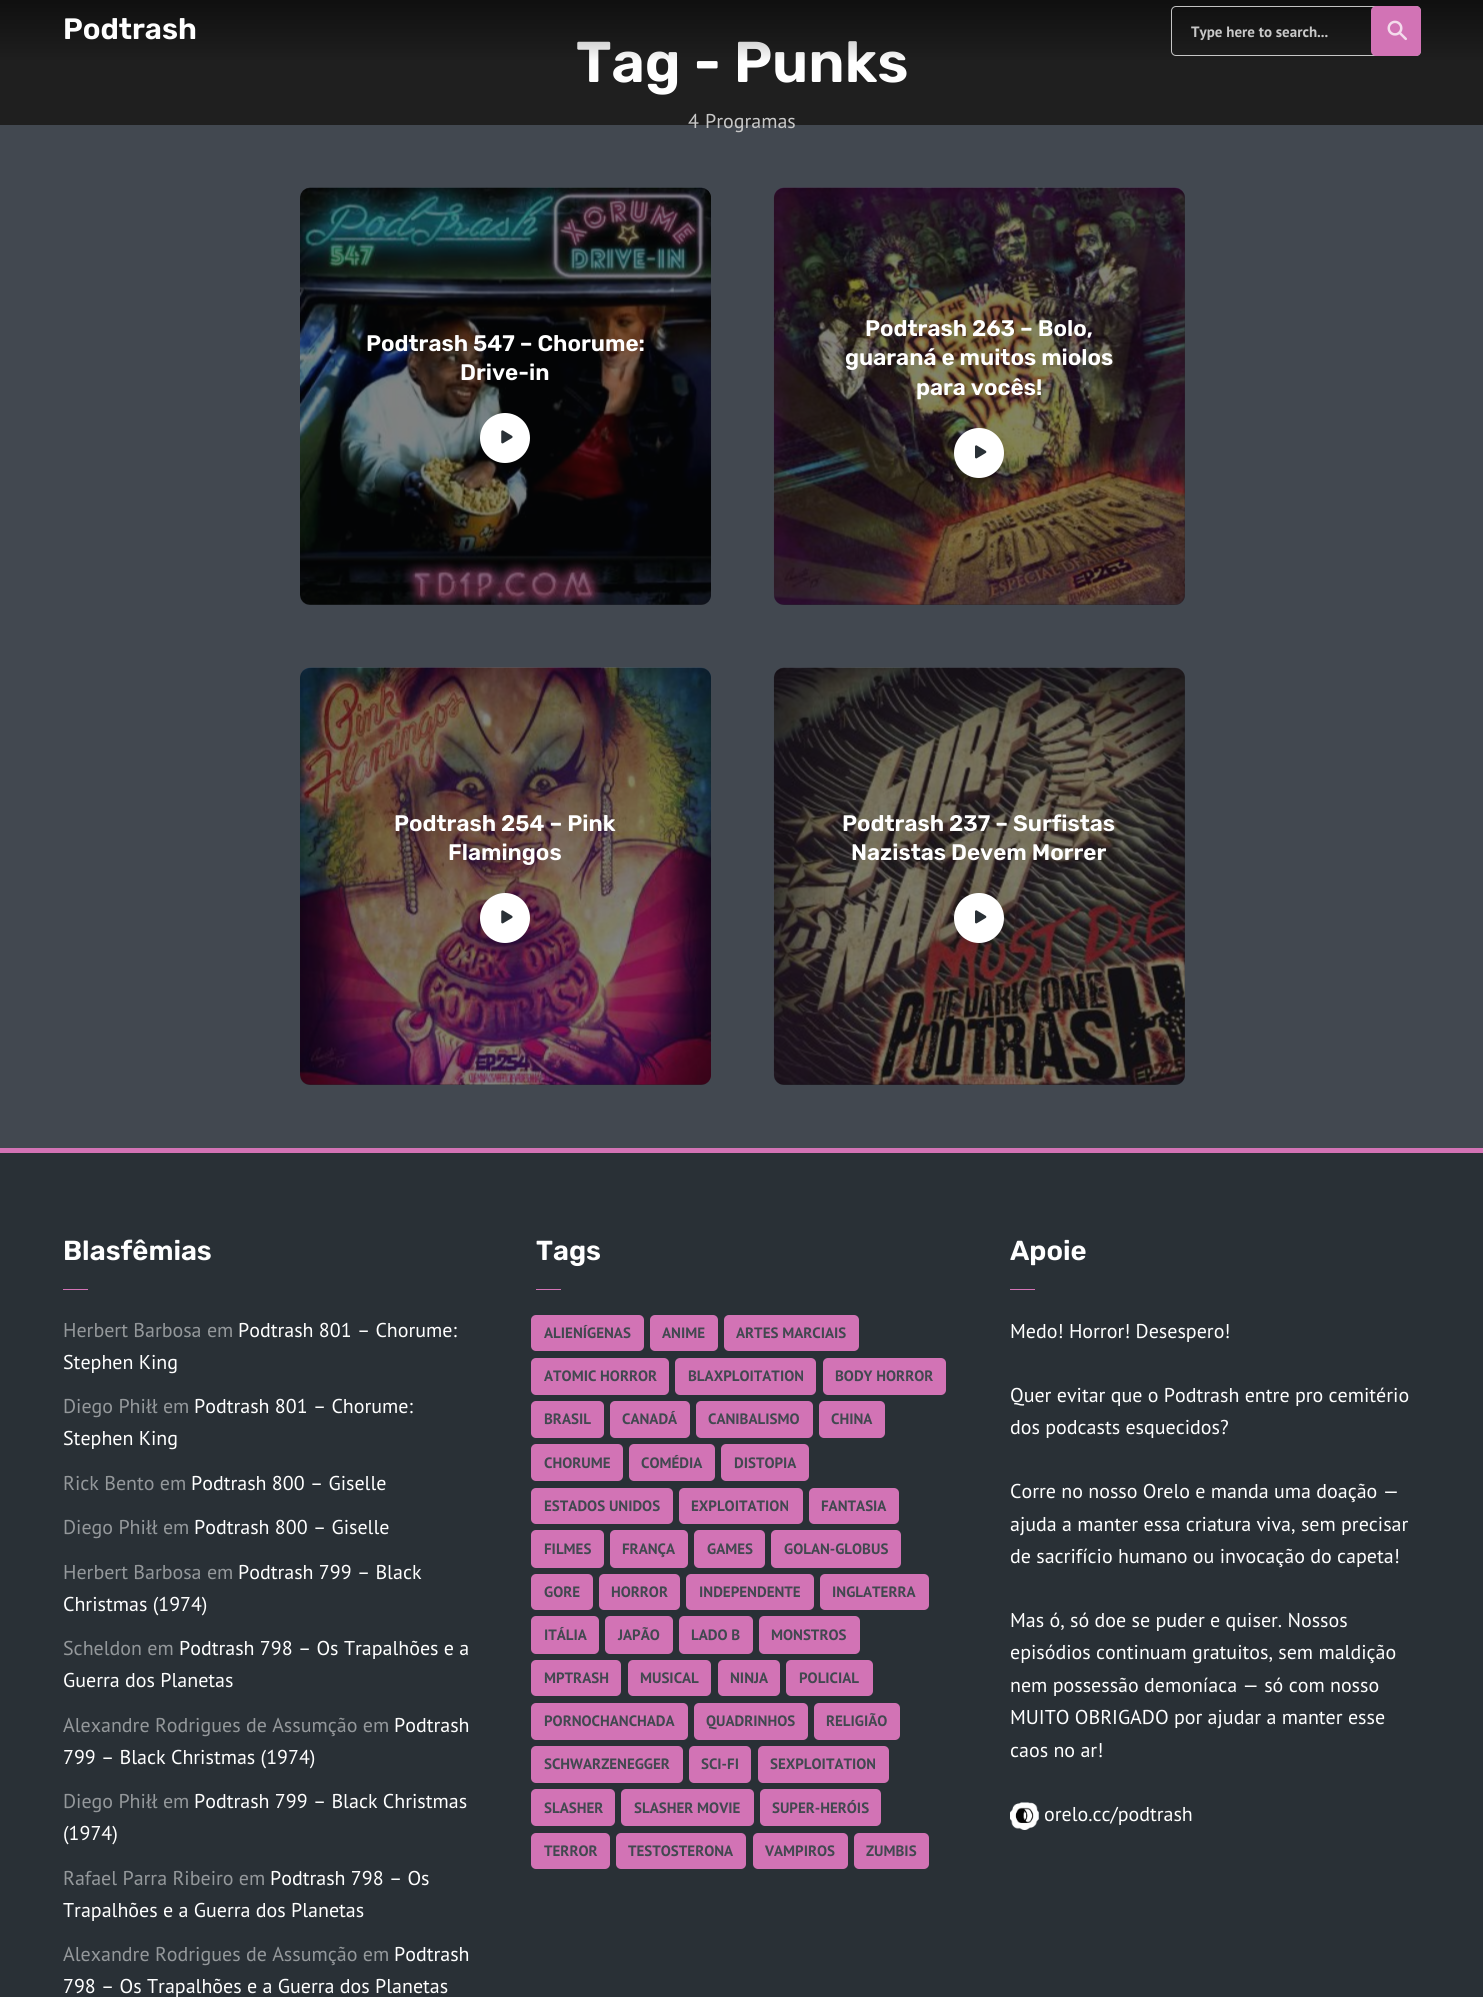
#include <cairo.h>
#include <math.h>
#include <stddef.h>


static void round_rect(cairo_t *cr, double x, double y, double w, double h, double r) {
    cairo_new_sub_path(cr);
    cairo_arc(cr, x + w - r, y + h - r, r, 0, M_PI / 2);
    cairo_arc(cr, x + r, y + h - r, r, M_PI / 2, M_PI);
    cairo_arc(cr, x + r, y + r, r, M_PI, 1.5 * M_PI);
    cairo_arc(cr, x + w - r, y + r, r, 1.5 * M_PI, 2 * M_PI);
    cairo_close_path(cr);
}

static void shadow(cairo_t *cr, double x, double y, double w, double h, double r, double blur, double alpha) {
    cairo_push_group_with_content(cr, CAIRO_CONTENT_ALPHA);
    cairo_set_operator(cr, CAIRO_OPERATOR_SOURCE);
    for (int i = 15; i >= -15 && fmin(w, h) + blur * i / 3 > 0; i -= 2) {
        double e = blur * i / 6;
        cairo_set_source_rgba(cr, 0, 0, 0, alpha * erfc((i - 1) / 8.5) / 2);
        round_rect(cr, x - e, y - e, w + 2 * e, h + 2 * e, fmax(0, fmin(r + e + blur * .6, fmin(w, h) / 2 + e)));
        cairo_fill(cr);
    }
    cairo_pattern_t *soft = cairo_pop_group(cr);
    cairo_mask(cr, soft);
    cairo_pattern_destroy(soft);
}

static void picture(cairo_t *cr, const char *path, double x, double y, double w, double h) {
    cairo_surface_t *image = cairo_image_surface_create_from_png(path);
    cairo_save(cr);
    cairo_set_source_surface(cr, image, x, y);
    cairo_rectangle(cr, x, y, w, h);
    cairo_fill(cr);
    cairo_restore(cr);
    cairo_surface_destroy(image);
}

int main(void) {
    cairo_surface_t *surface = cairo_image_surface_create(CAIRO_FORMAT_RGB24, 1483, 1997);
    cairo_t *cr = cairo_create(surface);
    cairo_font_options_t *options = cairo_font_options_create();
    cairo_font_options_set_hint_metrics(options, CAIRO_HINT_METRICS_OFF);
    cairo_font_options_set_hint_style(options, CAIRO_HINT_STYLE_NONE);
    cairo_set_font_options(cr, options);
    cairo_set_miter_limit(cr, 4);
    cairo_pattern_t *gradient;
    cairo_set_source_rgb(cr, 0.259, 0.282, 0.314);
    cairo_paint(cr);
    cairo_set_source_rgb(cr, 0.122, 0.122, 0.122);
    cairo_rectangle(cr, 0, 0, 1483, 125);
    cairo_fill(cr);
    cairo_select_font_face(cr, "Rubik SemiBold", CAIRO_FONT_SLANT_NORMAL, CAIRO_FONT_WEIGHT_NORMAL);
    cairo_set_font_size(cr, 57.5);
    cairo_set_source_rgb(cr, 1, 1, 1);
    cairo_move_to(cr, 576, 82);
    cairo_show_text(cr, "Tag - Punks");
    gradient = cairo_pattern_create_linear(742, 0, 742, 63);
    cairo_pattern_add_color_stop_rgba(gradient, 0, 0, 0, 0, 0.5);
    cairo_pattern_add_color_stop_rgba(gradient, 1, 0, 0, 0, 0);
    cairo_set_source(cr, gradient);
    cairo_pattern_destroy(gradient);
    cairo_rectangle(cr, 0, 0, 1483, 60);
    cairo_fill(cr);
    cairo_set_font_size(cr, 29.5);
    cairo_set_source_rgb(cr, 1, 1, 1);
    cairo_move_to(cr, 63, 39);
    cairo_show_text(cr, "Podtrash");
    round_rect(cr, 1171.5, 6.5, 249, 49, 4.5);
    cairo_set_source_rgba(cr, 1, 1, 1, 0.75);
    cairo_set_line_width(cr, 1);
    cairo_stroke(cr);
    cairo_select_font_face(cr, "PT Sans", CAIRO_FONT_SLANT_NORMAL, CAIRO_FONT_WEIGHT_BOLD);
    cairo_set_font_size(cr, 15);
    cairo_set_source_rgb(cr, 0.784, 0.784, 0.784);
    cairo_move_to(cr, 1191, 37);
    cairo_show_text(cr, "Type here to search...");
    cairo_set_source_rgb(cr, 0.824, 0.451, 0.71);
    round_rect(cr, 1371, 6, 50, 50, 5);
    cairo_fill(cr);
    picture(cr, "img1.png", 1387, 20, 20, 21);
    cairo_select_font_face(cr, "PT Sans", CAIRO_FONT_SLANT_NORMAL, CAIRO_FONT_WEIGHT_NORMAL);
    cairo_set_font_size(cr, 20);
    cairo_set_source_rgb(cr, 0.784, 0.784, 0.784);
    cairo_move_to(cr, 688, 128);
    cairo_show_text(cr, "4");
    cairo_move_to(cr, 705, 128);
    cairo_show_text(cr, "Programas");
    picture(cr, "img2.png", 300, 187, 411, 418);
    cairo_set_source_rgba(cr, 0.031, 0.039, 0.043, 0.5);
    round_rect(cr, 300, 188, 411, 417, 10);
    cairo_fill(cr);
    cairo_select_font_face(cr, "Rubik SemiBold", CAIRO_FONT_SLANT_NORMAL, CAIRO_FONT_WEIGHT_NORMAL);
    cairo_set_font_size(cr, 22.5);
    cairo_set_source_rgb(cr, 1, 1, 1);
    cairo_move_to(cr, 366, 351);
    cairo_show_text(cr, "Podtrash 547 – Chorume:");
    cairo_move_to(cr, 460, 380);
    cairo_show_text(cr, "Drive-in");
    cairo_new_path(cr);
    cairo_arc(cr, 505, 438, 25, 0, 2 * M_PI);
    cairo_fill(cr);
    picture(cr, "img3.png", 501, 430, 12, 14);
    picture(cr, "img4.png", 773, 187, 412, 418);
    cairo_set_source_rgba(cr, 0.031, 0.039, 0.043, 0.5);
    round_rect(cr, 774, 188, 411, 417, 10);
    cairo_fill(cr);
    cairo_set_source_rgb(cr, 1, 1, 1);
    cairo_move_to(cr, 865, 336);
    cairo_show_text(cr, "Podtrash 263 – Bolo,");
    cairo_move_to(cr, 845, 365);
    cairo_show_text(cr, "guaraná e muitos miolos");
    cairo_move_to(cr, 916, 395);
    cairo_show_text(cr, "para vocês!");
    cairo_set_source_rgb(cr, 0, 0, 0);
    shadow(cr, 954, 434, 50, 50, 25, 6, 0.1);
    cairo_set_source_rgb(cr, 1, 1, 1);
    cairo_arc(cr, 979, 453, 25, 0, 2 * M_PI);
    cairo_fill(cr);
    picture(cr, "img5.png", 975, 445, 12, 14);
    picture(cr, "img6.png", 300, 667, 411, 418);
    cairo_set_source_rgba(cr, 0.031, 0.039, 0.043, 0.5);
    round_rect(cr, 300, 668, 411, 417, 10);
    cairo_fill(cr);
    cairo_set_source_rgb(cr, 1, 1, 1);
    cairo_move_to(cr, 394, 831);
    cairo_show_text(cr, "Podtrash 254 – Pink");
    cairo_move_to(cr, 448, 860);
    cairo_show_text(cr, "Flamingos");
    cairo_set_source_rgb(cr, 0, 0, 0);
    shadow(cr, 480, 899, 50, 50, 25, 6, 0.1);
    cairo_set_source_rgb(cr, 1, 1, 1);
    cairo_arc(cr, 505, 918, 25, 0, 2 * M_PI);
    cairo_fill(cr);
    picture(cr, "img3.png", 501, 910, 12, 14);
    picture(cr, "img7.png", 773, 667, 412, 418);
    cairo_set_source_rgba(cr, 0.031, 0.039, 0.043, 0.5);
    round_rect(cr, 774, 668, 411, 417, 10);
    cairo_fill(cr);
    cairo_set_source_rgb(cr, 1, 1, 1);
    cairo_move_to(cr, 842, 831);
    cairo_show_text(cr, "Podtrash 237 – Surfistas");
    cairo_move_to(cr, 851, 860);
    cairo_show_text(cr, "Nazistas Devem Morrer");
    cairo_set_source_rgb(cr, 0, 0, 0);
    shadow(cr, 954, 899, 50, 50, 25, 6, 0.1);
    cairo_set_source_rgb(cr, 1, 1, 1);
    cairo_arc(cr, 979, 918, 25, 0, 2 * M_PI);
    cairo_fill(cr);
    picture(cr, "img5.png", 975, 910, 12, 14);
    cairo_set_source_rgb(cr, 0.161, 0.188, 0.212);
    cairo_rectangle(cr, 0, 1153, 1483, 844);
    cairo_fill(cr);
    cairo_set_source_rgb(cr, 0.824, 0.451, 0.71);
    cairo_rectangle(cr, 0, 1148, 1483, 5);
    cairo_fill(cr);
    cairo_set_font_size(cr, 27.5);
    cairo_set_source_rgb(cr, 1, 1, 1);
    cairo_move_to(cr, 63, 1260);
    cairo_show_text(cr, "Blasfêmias");
    cairo_set_source_rgb(cr, 0.824, 0.451, 0.71);
    cairo_rectangle(cr, 63, 1289, 25, 1);
    cairo_fill(cr);
    cairo_select_font_face(cr, "PT Sans", CAIRO_FONT_SLANT_NORMAL, CAIRO_FONT_WEIGHT_NORMAL);
    cairo_set_font_size(cr, 20);
    cairo_set_source_rgb(cr, 0.58, 0.596, 0.608);
    cairo_move_to(cr, 63, 1337);
    cairo_show_text(cr, "Herbert Barbosa em");
    cairo_set_source_rgb(cr, 1, 1, 1);
    cairo_move_to(cr, 238, 1337);
    cairo_show_text(cr, "Podtrash 801 – Chorume:");
    cairo_move_to(cr, 63, 1369);
    cairo_show_text(cr, "Stephen King");
    cairo_set_source_rgb(cr, 0.58, 0.596, 0.608);
    cairo_move_to(cr, 63, 1413);
    cairo_show_text(cr, "Diego Phiłł em");
    cairo_set_source_rgb(cr, 1, 1, 1);
    cairo_move_to(cr, 194, 1413);
    cairo_show_text(cr, "Podtrash 801 – Chorume:");
    cairo_move_to(cr, 63, 1445);
    cairo_show_text(cr, "Stephen King");
    cairo_set_source_rgb(cr, 0.58, 0.596, 0.608);
    cairo_move_to(cr, 63, 1490);
    cairo_show_text(cr, "Rick Bento em");
    cairo_set_source_rgb(cr, 1, 1, 1);
    cairo_move_to(cr, 191, 1490);
    cairo_show_text(cr, "Podtrash 800 – Giselle");
    cairo_set_source_rgb(cr, 0.58, 0.596, 0.608);
    cairo_move_to(cr, 63, 1534);
    cairo_show_text(cr, "Diego Phiłł em");
    cairo_set_source_rgb(cr, 1, 1, 1);
    cairo_move_to(cr, 194, 1534);
    cairo_show_text(cr, "Podtrash 800 – Giselle");
    cairo_set_source_rgb(cr, 0.58, 0.596, 0.608);
    cairo_move_to(cr, 63, 1579);
    cairo_show_text(cr, "Herbert Barbosa em");
    cairo_set_source_rgb(cr, 1, 1, 1);
    cairo_move_to(cr, 238, 1579);
    cairo_show_text(cr, "Podtrash 799 – Black");
    cairo_move_to(cr, 63, 1611);
    cairo_show_text(cr, "Christmas (1974)");
    cairo_set_source_rgb(cr, 0.58, 0.596, 0.608);
    cairo_move_to(cr, 63, 1655);
    cairo_show_text(cr, "Scheldon em");
    cairo_set_source_rgb(cr, 1, 1, 1);
    cairo_move_to(cr, 179, 1655);
    cairo_show_text(cr, "Podtrash 798 – Os Trapalhões e a");
    cairo_move_to(cr, 63, 1687);
    cairo_show_text(cr, "Guerra dos Planetas");
    cairo_set_source_rgb(cr, 0.58, 0.596, 0.608);
    cairo_move_to(cr, 63, 1732);
    cairo_show_text(cr, "Alexandre Rodrigues de Assumção em");
    cairo_set_source_rgb(cr, 1, 1, 1);
    cairo_move_to(cr, 394, 1732);
    cairo_show_text(cr, "Podtrash");
    cairo_move_to(cr, 63, 1764);
    cairo_show_text(cr, "799 – Black Christmas (1974)");
    cairo_set_source_rgb(cr, 0.58, 0.596, 0.608);
    cairo_move_to(cr, 63, 1808);
    cairo_show_text(cr, "Diego Phiłł em");
    cairo_set_source_rgb(cr, 1, 1, 1);
    cairo_move_to(cr, 194, 1808);
    cairo_show_text(cr, "Podtrash 799 – Black Christmas");
    cairo_move_to(cr, 63, 1840);
    cairo_show_text(cr, "(1974)");
    cairo_set_source_rgb(cr, 0.58, 0.596, 0.608);
    cairo_move_to(cr, 63, 1885);
    cairo_show_text(cr, "Rafael Parra Ribeiro em");
    cairo_set_source_rgb(cr, 1, 1, 1);
    cairo_move_to(cr, 270, 1885);
    cairo_show_text(cr, "Podtrash 798 – Os");
    cairo_move_to(cr, 63, 1917);
    cairo_show_text(cr, "Trapalhões e a Guerra dos Planetas");
    cairo_set_source_rgb(cr, 0.58, 0.596, 0.608);
    cairo_move_to(cr, 63, 1961);
    cairo_show_text(cr, "Alexandre Rodrigues de Assumção em");
    cairo_set_source_rgb(cr, 1, 1, 1);
    cairo_move_to(cr, 394, 1961);
    cairo_show_text(cr, "Podtrash");
    cairo_move_to(cr, 63, 1993);
    cairo_show_text(cr, "798 – Os Trapalhões e a Guerra dos Planetas");
    cairo_select_font_face(cr, "Rubik SemiBold", CAIRO_FONT_SLANT_NORMAL, CAIRO_FONT_WEIGHT_NORMAL);
    cairo_set_font_size(cr, 27.5);
    cairo_move_to(cr, 536, 1260);
    cairo_show_text(cr, "Tags");
    cairo_set_source_rgb(cr, 0.824, 0.451, 0.71);
    cairo_rectangle(cr, 536, 1289, 25, 1);
    cairo_fill(cr);
    round_rect(cr, 531, 1315, 113, 36, 5);
    cairo_fill(cr);
    cairo_select_font_face(cr, "PT Sans", CAIRO_FONT_SLANT_NORMAL, CAIRO_FONT_WEIGHT_BOLD);
    cairo_set_font_size(cr, 15);
    cairo_set_source_rgb(cr, 0.259, 0.282, 0.314);
    cairo_move_to(cr, 544, 1338);
    cairo_show_text(cr, "ALIENÍGENAS");
    cairo_set_source_rgb(cr, 0.824, 0.451, 0.71);
    round_rect(cr, 650, 1315, 68, 36, 5);
    cairo_fill(cr);
    cairo_set_source_rgb(cr, 0.259, 0.282, 0.314);
    cairo_move_to(cr, 662, 1338);
    cairo_show_text(cr, "ANIME");
    cairo_set_source_rgb(cr, 0.824, 0.451, 0.71);
    round_rect(cr, 724, 1315, 135, 36, 5);
    cairo_fill(cr);
    cairo_set_source_rgb(cr, 0.259, 0.282, 0.314);
    cairo_move_to(cr, 736, 1338);
    cairo_show_text(cr, "ARTES MARCIAIS");
    cairo_set_source_rgb(cr, 0.824, 0.451, 0.71);
    round_rect(cr, 531, 1358, 138, 37, 5);
    cairo_fill(cr);
    cairo_set_source_rgb(cr, 0.259, 0.282, 0.314);
    cairo_move_to(cr, 544, 1381);
    cairo_show_text(cr, "ATOMIC HORROR");
    cairo_set_source_rgb(cr, 0.824, 0.451, 0.71);
    round_rect(cr, 675, 1358, 141, 37, 5);
    cairo_fill(cr);
    cairo_set_source_rgb(cr, 0.259, 0.282, 0.314);
    cairo_move_to(cr, 688, 1381);
    cairo_show_text(cr, "BLAXPLOITATION");
    cairo_set_source_rgb(cr, 0.824, 0.451, 0.71);
    round_rect(cr, 823, 1358, 123, 37, 5);
    cairo_fill(cr);
    cairo_set_source_rgb(cr, 0.259, 0.282, 0.314);
    cairo_move_to(cr, 835, 1381);
    cairo_show_text(cr, "BODY HORROR");
    cairo_set_source_rgb(cr, 0.824, 0.451, 0.71);
    round_rect(cr, 531, 1401, 73, 37, 5);
    cairo_fill(cr);
    cairo_set_source_rgb(cr, 0.259, 0.282, 0.314);
    cairo_move_to(cr, 544, 1424);
    cairo_show_text(cr, "BRASIL");
    cairo_set_source_rgb(cr, 0.824, 0.451, 0.71);
    round_rect(cr, 610, 1401, 80, 37, 5);
    cairo_fill(cr);
    cairo_set_source_rgb(cr, 0.259, 0.282, 0.314);
    cairo_move_to(cr, 622, 1424);
    cairo_show_text(cr, "CANADÁ");
    cairo_set_source_rgb(cr, 0.824, 0.451, 0.71);
    round_rect(cr, 696, 1401, 117, 37, 5);
    cairo_fill(cr);
    cairo_set_source_rgb(cr, 0.259, 0.282, 0.314);
    cairo_move_to(cr, 708, 1424);
    cairo_show_text(cr, "CANIBALISMO");
    cairo_set_source_rgb(cr, 0.824, 0.451, 0.71);
    round_rect(cr, 819, 1401, 66, 37, 5);
    cairo_fill(cr);
    cairo_set_source_rgb(cr, 0.259, 0.282, 0.314);
    cairo_move_to(cr, 831, 1424);
    cairo_show_text(cr, "CHINA");
    cairo_set_source_rgb(cr, 0.824, 0.451, 0.71);
    round_rect(cr, 531, 1444, 92, 37, 5);
    cairo_fill(cr);
    cairo_set_source_rgb(cr, 0.259, 0.282, 0.314);
    cairo_move_to(cr, 544, 1468);
    cairo_show_text(cr, "CHORUME");
    cairo_set_source_rgb(cr, 0.824, 0.451, 0.71);
    round_rect(cr, 629, 1444, 86, 37, 5);
    cairo_fill(cr);
    cairo_set_source_rgb(cr, 0.259, 0.282, 0.314);
    cairo_move_to(cr, 641, 1468);
    cairo_show_text(cr, "COMÉDIA");
    cairo_set_source_rgb(cr, 0.824, 0.451, 0.71);
    round_rect(cr, 721, 1444, 88, 37, 5);
    cairo_fill(cr);
    cairo_set_source_rgb(cr, 0.259, 0.282, 0.314);
    cairo_move_to(cr, 734, 1468);
    cairo_show_text(cr, "DISTOPIA");
    cairo_set_source_rgb(cr, 0.824, 0.451, 0.71);
    round_rect(cr, 531, 1488, 142, 36, 5);
    cairo_fill(cr);
    cairo_set_source_rgb(cr, 0.259, 0.282, 0.314);
    cairo_move_to(cr, 544, 1511);
    cairo_show_text(cr, "ESTADOS UNIDOS");
    cairo_set_source_rgb(cr, 0.824, 0.451, 0.71);
    round_rect(cr, 679, 1488, 124, 36, 5);
    cairo_fill(cr);
    cairo_set_source_rgb(cr, 0.259, 0.282, 0.314);
    cairo_move_to(cr, 691, 1511);
    cairo_show_text(cr, "EXPLOITATION");
    cairo_set_source_rgb(cr, 0.824, 0.451, 0.71);
    round_rect(cr, 809, 1488, 90, 36, 5);
    cairo_fill(cr);
    cairo_set_source_rgb(cr, 0.259, 0.282, 0.314);
    cairo_move_to(cr, 821, 1511);
    cairo_show_text(cr, "FANTASIA");
    cairo_set_source_rgb(cr, 0.824, 0.451, 0.71);
    round_rect(cr, 531, 1530, 73, 38, 5);
    cairo_fill(cr);
    cairo_set_source_rgb(cr, 0.259, 0.282, 0.314);
    cairo_move_to(cr, 544, 1554);
    cairo_show_text(cr, "FILMES");
    cairo_set_source_rgb(cr, 0.824, 0.451, 0.71);
    round_rect(cr, 610, 1530, 78, 38, 5);
    cairo_fill(cr);
    cairo_set_source_rgb(cr, 0.259, 0.282, 0.314);
    cairo_move_to(cr, 622, 1554);
    cairo_show_text(cr, "FRANÇA");
    cairo_set_source_rgb(cr, 0.824, 0.451, 0.71);
    round_rect(cr, 694, 1530, 71, 38, 5);
    cairo_fill(cr);
    cairo_set_source_rgb(cr, 0.259, 0.282, 0.314);
    cairo_move_to(cr, 707, 1554);
    cairo_show_text(cr, "GAMES");
    cairo_set_source_rgb(cr, 0.824, 0.451, 0.71);
    round_rect(cr, 771, 1530, 130, 38, 5);
    cairo_fill(cr);
    cairo_set_source_rgb(cr, 0.259, 0.282, 0.314);
    cairo_move_to(cr, 784, 1554);
    cairo_show_text(cr, "GOLAN-GLOBUS");
    cairo_set_source_rgb(cr, 0.824, 0.451, 0.71);
    round_rect(cr, 531, 1574, 62, 36, 5);
    cairo_fill(cr);
    cairo_set_source_rgb(cr, 0.259, 0.282, 0.314);
    cairo_move_to(cr, 544, 1597);
    cairo_show_text(cr, "GORE");
    cairo_set_source_rgb(cr, 0.824, 0.451, 0.71);
    round_rect(cr, 599, 1574, 81, 36, 5);
    cairo_fill(cr);
    cairo_set_source_rgb(cr, 0.259, 0.282, 0.314);
    cairo_move_to(cr, 611, 1597);
    cairo_show_text(cr, "HORROR");
    cairo_set_source_rgb(cr, 0.824, 0.451, 0.71);
    round_rect(cr, 686, 1574, 128, 36, 5);
    cairo_fill(cr);
    cairo_set_source_rgb(cr, 0.259, 0.282, 0.314);
    cairo_move_to(cr, 699, 1597);
    cairo_show_text(cr, "INDEPENDENTE");
    cairo_set_source_rgb(cr, 0.824, 0.451, 0.71);
    round_rect(cr, 820, 1574, 109, 36, 5);
    cairo_fill(cr);
    cairo_set_source_rgb(cr, 0.259, 0.282, 0.314);
    cairo_move_to(cr, 832, 1597);
    cairo_show_text(cr, "INGLATERRA");
    cairo_set_source_rgb(cr, 0.824, 0.451, 0.71);
    round_rect(cr, 531, 1616, 68, 38, 5);
    cairo_fill(cr);
    cairo_set_source_rgb(cr, 0.259, 0.282, 0.314);
    cairo_move_to(cr, 544, 1640);
    cairo_show_text(cr, "ITÁLIA");
    cairo_set_source_rgb(cr, 0.824, 0.451, 0.71);
    round_rect(cr, 605, 1616, 68, 38, 5);
    cairo_fill(cr);
    cairo_set_source_rgb(cr, 0.259, 0.282, 0.314);
    cairo_move_to(cr, 618, 1640);
    cairo_show_text(cr, "JAPÃO");
    cairo_set_source_rgb(cr, 0.824, 0.451, 0.71);
    round_rect(cr, 679, 1616, 74, 38, 5);
    cairo_fill(cr);
    cairo_set_source_rgb(cr, 0.259, 0.282, 0.314);
    cairo_move_to(cr, 691, 1640);
    cairo_show_text(cr, "LADO B");
    cairo_set_source_rgb(cr, 0.824, 0.451, 0.71);
    round_rect(cr, 759, 1616, 101, 38, 5);
    cairo_fill(cr);
    cairo_set_source_rgb(cr, 0.259, 0.282, 0.314);
    cairo_move_to(cr, 771, 1640);
    cairo_show_text(cr, "MONSTROS");
    cairo_set_source_rgb(cr, 0.824, 0.451, 0.71);
    round_rect(cr, 531, 1660, 90, 36, 5);
    cairo_fill(cr);
    cairo_set_source_rgb(cr, 0.259, 0.282, 0.314);
    cairo_move_to(cr, 544, 1683);
    cairo_show_text(cr, "MPTRASH");
    cairo_set_source_rgb(cr, 0.824, 0.451, 0.71);
    round_rect(cr, 628, 1660, 83, 36, 5);
    cairo_fill(cr);
    cairo_set_source_rgb(cr, 0.259, 0.282, 0.314);
    cairo_move_to(cr, 640, 1683);
    cairo_show_text(cr, "MUSICAL");
    cairo_set_source_rgb(cr, 0.824, 0.451, 0.71);
    round_rect(cr, 718, 1660, 62, 36, 5);
    cairo_fill(cr);
    cairo_set_source_rgb(cr, 0.259, 0.282, 0.314);
    cairo_move_to(cr, 730, 1683);
    cairo_show_text(cr, "NINJA");
    cairo_set_source_rgb(cr, 0.824, 0.451, 0.71);
    round_rect(cr, 786, 1660, 87, 36, 5);
    cairo_fill(cr);
    cairo_set_source_rgb(cr, 0.259, 0.282, 0.314);
    cairo_move_to(cr, 799, 1683);
    cairo_show_text(cr, "POLICIAL");
    cairo_set_source_rgb(cr, 0.824, 0.451, 0.71);
    round_rect(cr, 531, 1703, 157, 37, 5);
    cairo_fill(cr);
    cairo_set_source_rgb(cr, 0.259, 0.282, 0.314);
    cairo_move_to(cr, 544, 1726);
    cairo_show_text(cr, "PORNOCHANCHADA");
    cairo_set_source_rgb(cr, 0.824, 0.451, 0.71);
    round_rect(cr, 694, 1703, 114, 37, 5);
    cairo_fill(cr);
    cairo_set_source_rgb(cr, 0.259, 0.282, 0.314);
    cairo_move_to(cr, 706, 1726);
    cairo_show_text(cr, "QUADRINHOS");
    cairo_set_source_rgb(cr, 0.824, 0.451, 0.71);
    round_rect(cr, 814, 1703, 86, 37, 5);
    cairo_fill(cr);
    cairo_set_source_rgb(cr, 0.259, 0.282, 0.314);
    cairo_move_to(cr, 826, 1726);
    cairo_show_text(cr, "RELIGIÃO");
    cairo_set_source_rgb(cr, 0.824, 0.451, 0.71);
    round_rect(cr, 531, 1746, 152, 37, 5);
    cairo_fill(cr);
    cairo_set_source_rgb(cr, 0.259, 0.282, 0.314);
    cairo_move_to(cr, 544, 1769);
    cairo_show_text(cr, "SCHWARZENEGGER");
    cairo_set_source_rgb(cr, 0.824, 0.451, 0.71);
    round_rect(cr, 689, 1746, 62, 37, 5);
    cairo_fill(cr);
    cairo_set_source_rgb(cr, 0.259, 0.282, 0.314);
    cairo_move_to(cr, 701, 1769);
    cairo_show_text(cr, "SCI-FI");
    cairo_set_source_rgb(cr, 0.824, 0.451, 0.71);
    round_rect(cr, 758, 1746, 131, 37, 5);
    cairo_fill(cr);
    cairo_set_source_rgb(cr, 0.259, 0.282, 0.314);
    cairo_move_to(cr, 770, 1769);
    cairo_show_text(cr, "SEXPLOITATION");
    cairo_set_source_rgb(cr, 0.824, 0.451, 0.71);
    round_rect(cr, 531, 1789, 84, 37, 5);
    cairo_fill(cr);
    cairo_set_source_rgb(cr, 0.259, 0.282, 0.314);
    cairo_move_to(cr, 544, 1813);
    cairo_show_text(cr, "SLASHER");
    cairo_set_source_rgb(cr, 0.824, 0.451, 0.71);
    round_rect(cr, 621, 1789, 133, 37, 5);
    cairo_fill(cr);
    cairo_set_source_rgb(cr, 0.259, 0.282, 0.314);
    cairo_move_to(cr, 634, 1813);
    cairo_show_text(cr, "SLASHER MOVIE");
    cairo_set_source_rgb(cr, 0.824, 0.451, 0.71);
    round_rect(cr, 760, 1789, 121, 37, 5);
    cairo_fill(cr);
    cairo_set_source_rgb(cr, 0.259, 0.282, 0.314);
    cairo_move_to(cr, 772, 1813);
    cairo_show_text(cr, "SUPER-HERÓIS");
    cairo_set_source_rgb(cr, 0.824, 0.451, 0.71);
    round_rect(cr, 531, 1833, 79, 36, 5);
    cairo_fill(cr);
    cairo_set_source_rgb(cr, 0.259, 0.282, 0.314);
    cairo_move_to(cr, 544, 1856);
    cairo_show_text(cr, "TERROR");
    cairo_set_source_rgb(cr, 0.824, 0.451, 0.71);
    round_rect(cr, 616, 1833, 130, 36, 5);
    cairo_fill(cr);
    cairo_set_source_rgb(cr, 0.259, 0.282, 0.314);
    cairo_move_to(cr, 628, 1856);
    cairo_show_text(cr, "TESTOSTERONA");
    cairo_set_source_rgb(cr, 0.824, 0.451, 0.71);
    round_rect(cr, 753, 1833, 95, 36, 5);
    cairo_fill(cr);
    cairo_set_source_rgb(cr, 0.259, 0.282, 0.314);
    cairo_move_to(cr, 765, 1856);
    cairo_show_text(cr, "VAMPIROS");
    cairo_set_source_rgb(cr, 0.824, 0.451, 0.71);
    round_rect(cr, 854, 1833, 75, 36, 5);
    cairo_fill(cr);
    cairo_set_source_rgb(cr, 0.259, 0.282, 0.314);
    cairo_move_to(cr, 866, 1856);
    cairo_show_text(cr, "ZUMBIS");
    cairo_select_font_face(cr, "Rubik SemiBold", CAIRO_FONT_SLANT_NORMAL, CAIRO_FONT_WEIGHT_NORMAL);
    cairo_set_font_size(cr, 27.5);
    cairo_set_source_rgb(cr, 1, 1, 1);
    cairo_move_to(cr, 1010, 1260);
    cairo_show_text(cr, "Apoie");
    cairo_set_source_rgb(cr, 0.824, 0.451, 0.71);
    cairo_rectangle(cr, 1010, 1289, 25, 1);
    cairo_fill(cr);
    cairo_select_font_face(cr, "PT Sans", CAIRO_FONT_SLANT_NORMAL, CAIRO_FONT_WEIGHT_NORMAL);
    cairo_set_font_size(cr, 20);
    cairo_set_source_rgb(cr, 1, 1, 1);
    cairo_move_to(cr, 1010, 1338);
    cairo_show_text(cr, "Medo! Horror! Desespero!");
    cairo_move_to(cr, 1010, 1402);
    cairo_show_text(cr, "Quer evitar que o Podtrash entre pro cemitério");
    cairo_move_to(cr, 1010, 1434);
    cairo_show_text(cr, "dos podcasts esquecidos?");
    cairo_move_to(cr, 1010, 1498);
    cairo_show_text(cr, "Corre no nosso Orelo e manda uma doação —");
    cairo_move_to(cr, 1010, 1531);
    cairo_show_text(cr, "ajuda a manter essa criatura viva, sem precisar");
    cairo_move_to(cr, 1010, 1563);
    cairo_show_text(cr, "de sacrifício humano ou invocação do capeta!");
    cairo_move_to(cr, 1010, 1627);
    cairo_show_text(cr, "Mas ó, só doe se puder e quiser. Nossos");
    cairo_move_to(cr, 1010, 1659);
    cairo_show_text(cr, "episódios continuam gratuitos, sem maldição");
    cairo_move_to(cr, 1010, 1692);
    cairo_show_text(cr, "nem possessão demoníaca — só com nosso");
    cairo_move_to(cr, 1010, 1724);
    cairo_show_text(cr, "MUITO OBRIGADO por ajudar a manter esse");
    cairo_move_to(cr, 1010, 1757);
    cairo_show_text(cr, "caos no ar!");
    picture(cr, "img8.png", 1010, 1802, 29, 28);
    cairo_move_to(cr, 1044, 1821);
    cairo_show_text(cr, "orelo.cc/podtrash");
    cairo_surface_write_to_png(surface, "page.png");
    cairo_font_options_destroy(options);
    cairo_destroy(cr);
    cairo_surface_destroy(surface);
    return 0;
}
